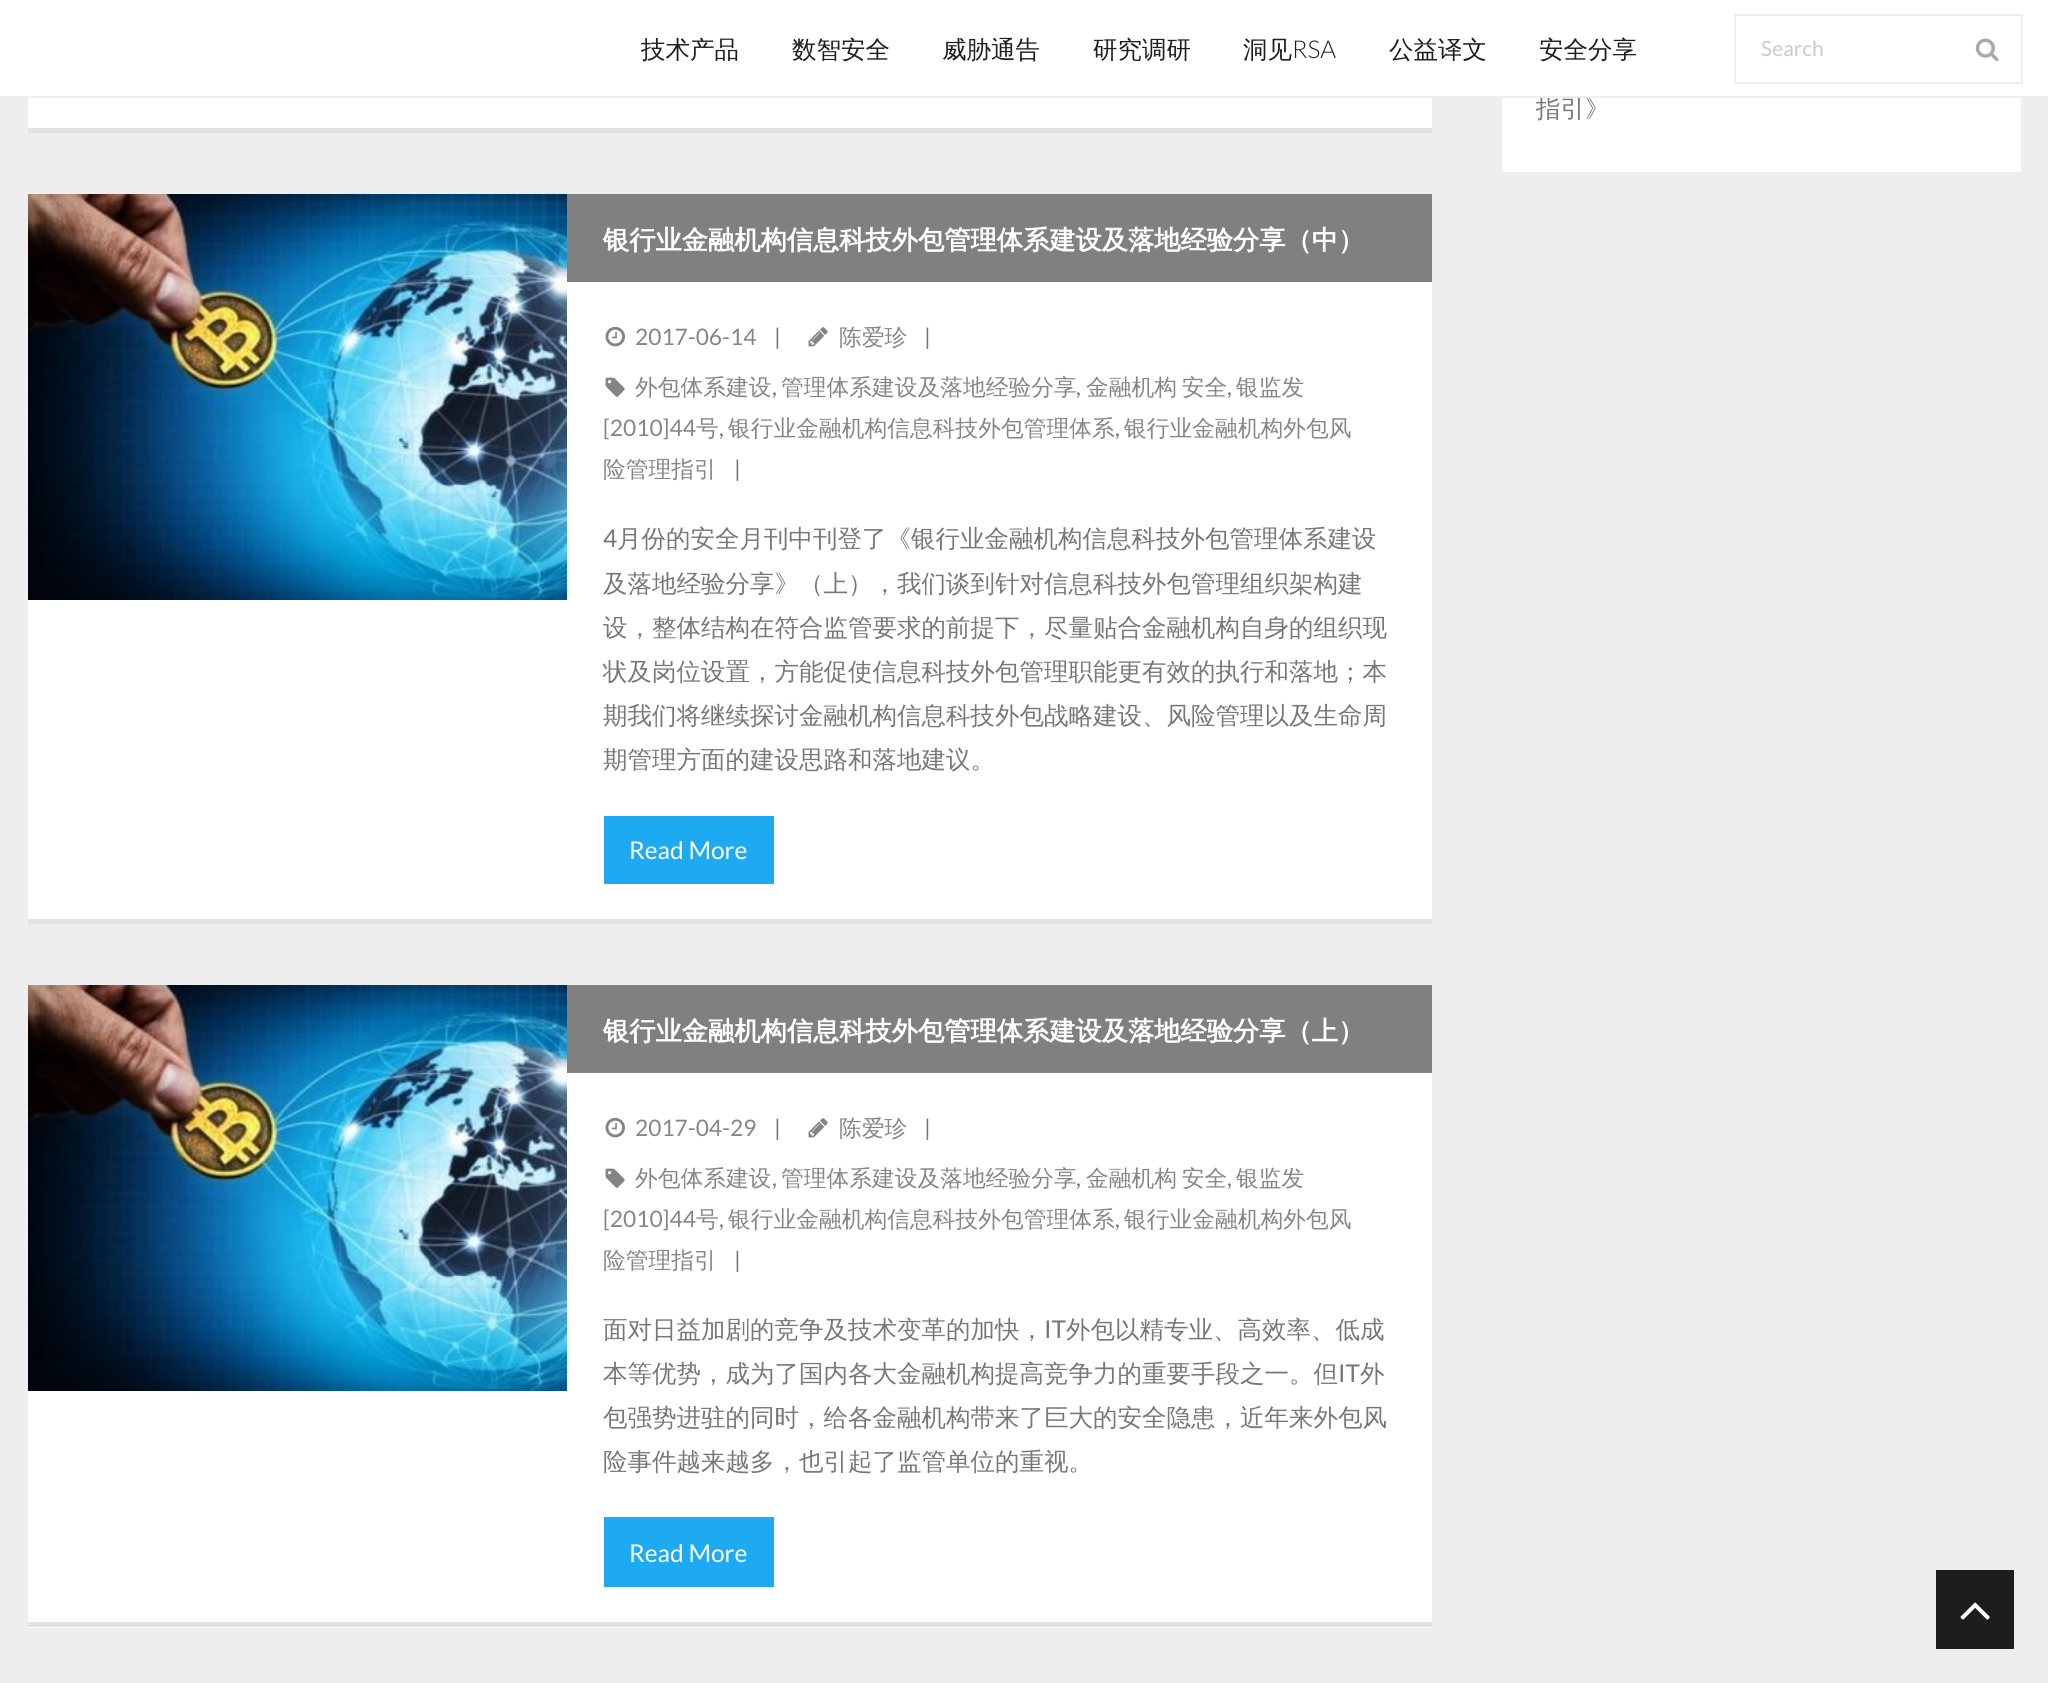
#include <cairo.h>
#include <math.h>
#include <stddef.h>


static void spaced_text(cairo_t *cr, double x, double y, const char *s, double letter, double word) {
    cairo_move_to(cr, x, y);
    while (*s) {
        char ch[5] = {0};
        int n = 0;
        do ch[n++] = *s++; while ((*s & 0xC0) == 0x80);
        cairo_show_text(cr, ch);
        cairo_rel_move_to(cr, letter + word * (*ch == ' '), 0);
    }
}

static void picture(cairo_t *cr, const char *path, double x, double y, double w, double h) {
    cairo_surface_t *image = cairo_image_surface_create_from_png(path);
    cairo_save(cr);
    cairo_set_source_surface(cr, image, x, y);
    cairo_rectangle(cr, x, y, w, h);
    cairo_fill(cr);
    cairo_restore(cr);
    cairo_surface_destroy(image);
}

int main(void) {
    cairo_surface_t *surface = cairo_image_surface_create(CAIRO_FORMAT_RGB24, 2048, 1683);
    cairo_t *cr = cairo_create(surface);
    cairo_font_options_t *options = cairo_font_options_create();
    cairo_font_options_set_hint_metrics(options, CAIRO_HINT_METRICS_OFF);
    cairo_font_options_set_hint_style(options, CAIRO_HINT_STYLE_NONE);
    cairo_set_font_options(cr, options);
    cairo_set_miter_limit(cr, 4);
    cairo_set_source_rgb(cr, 0.933, 0.933, 0.933);
    cairo_paint(cr);
    cairo_set_source_rgb(cr, 1, 1, 1);
    cairo_rectangle(cr, 0, 0, 2048, 96);
    cairo_fill(cr);
    cairo_rectangle(cr, 1502, 98, 519, 74);
    cairo_fill(cr);
    cairo_select_font_face(cr, "WenQuanYi Zen Hei Medium", CAIRO_FONT_SLANT_NORMAL, CAIRO_FONT_WEIGHT_NORMAL);
    cairo_set_font_size(cr, 24.5);
    cairo_set_source_rgb(cr, 0.467, 0.467, 0.467);
    cairo_move_to(cr, 1536, 117);
    cairo_show_text(cr, "指引》");
    cairo_set_source_rgb(cr, 0.933, 0.933, 0.933);
    cairo_rectangle(cr, 1540, 97, 50, 1);
    cairo_fill(cr);
    cairo_set_source_rgb(cr, 0.118, 0.118, 0.118);
    cairo_move_to(cr, 641, 58);
    cairo_show_text(cr, "技术产品");
    cairo_move_to(cr, 792, 58);
    cairo_show_text(cr, "数智安全");
    cairo_move_to(cr, 942, 58);
    cairo_show_text(cr, "威胁通告");
    cairo_move_to(cr, 1093, 58);
    cairo_show_text(cr, "研究调研");
    cairo_move_to(cr, 1243, 58);
    cairo_show_text(cr, "洞见");
    cairo_select_font_face(cr, "Lato Light", CAIRO_FONT_SLANT_NORMAL, CAIRO_FONT_WEIGHT_NORMAL);
    cairo_move_to(cr, 1292, 58);
    cairo_show_text(cr, "RSA");
    cairo_select_font_face(cr, "WenQuanYi Zen Hei Medium", CAIRO_FONT_SLANT_NORMAL, CAIRO_FONT_WEIGHT_NORMAL);
    cairo_move_to(cr, 1389, 58);
    cairo_show_text(cr, "公益译文");
    cairo_move_to(cr, 1539, 58);
    cairo_show_text(cr, "安全分享");
    cairo_rectangle(cr, 1735, 15, 287, 68);
    cairo_set_source_rgb(cr, 0.933, 0.933, 0.933);
    cairo_stroke(cr);
    cairo_select_font_face(cr, "Lato", CAIRO_FONT_SLANT_NORMAL, CAIRO_FONT_WEIGHT_NORMAL);
    cairo_set_font_size(cr, 21);
    cairo_set_source_rgb(cr, 0.792, 0.792, 0.792);
    cairo_move_to(cr, 1761, 56);
    cairo_show_text(cr, "Search");
    picture(cr, "img1.png", 1975, 38, 24, 24);
    cairo_set_source_rgb(cr, 1, 1, 1);
    cairo_rectangle(cr, 28, 98, 1404, 30);
    cairo_fill(cr);
    cairo_set_source_rgb(cr, 0.886, 0.886, 0.886);
    cairo_rectangle(cr, 28, 128, 1404, 5);
    cairo_fill(cr);
    cairo_set_source_rgb(cr, 1, 1, 1);
    cairo_rectangle(cr, 28, 282, 1404, 637);
    cairo_fill(cr);
    cairo_set_source_rgb(cr, 0.886, 0.886, 0.886);
    cairo_rectangle(cr, 28, 919, 1404, 5);
    cairo_fill(cr);
    cairo_save(cr);
    cairo_rectangle(cr, 28, 194, 1404, 791);
    cairo_clip(cr);
    cairo_set_source_rgb(cr, 0.502, 0.502, 0.502);
    cairo_new_path(cr);
    cairo_move_to(cr, -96, 194);
    cairo_line_to(cr, -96, 282);
    cairo_line_to(cr, 732, 282);
    cairo_line_to(cr, 604, 282);
    cairo_line_to(cr, 604, 194);
    cairo_line_to(cr, 732, 194);
    cairo_close_path(cr);
    cairo_fill(cr);
    cairo_restore(cr);
    picture(cr, "img2.png", 28, 194, 539, 406);
    cairo_set_source_rgb(cr, 0.502, 0.502, 0.502);
    cairo_rectangle(cr, 604, 194, 828, 88);
    cairo_fill(cr);
    cairo_select_font_face(cr, "WenQuanYi Zen Hei", CAIRO_FONT_SLANT_NORMAL, CAIRO_FONT_WEIGHT_BOLD);
    cairo_set_font_size(cr, 26.25);
    cairo_set_source_rgb(cr, 1, 1, 1);
    cairo_move_to(cr, 603, 249);
    cairo_show_text(cr, "银行业金融机构信息科技外包管理体系建设及落地经验分享（中）");
    picture(cr, "img3.png", 605, 326, 20, 21);
    cairo_select_font_face(cr, "Lato", CAIRO_FONT_SLANT_NORMAL, CAIRO_FONT_WEIGHT_NORMAL);
    cairo_set_font_size(cr, 22.75);
    cairo_set_source_rgb(cr, 0.522, 0.522, 0.522);
    cairo_move_to(cr, 635, 345);
    cairo_show_text(cr, "2017-06-14");
    cairo_set_source_rgb(cr, 0.467, 0.467, 0.467);
    cairo_move_to(cr, 774, 345);
    cairo_show_text(cr, "|");
    picture(cr, "img4.png", 808, 327, 20, 20);
    cairo_select_font_face(cr, "WenQuanYi Zen Hei Medium", CAIRO_FONT_SLANT_NORMAL, CAIRO_FONT_WEIGHT_NORMAL);
    cairo_set_source_rgb(cr, 0.522, 0.522, 0.522);
    cairo_move_to(cr, 839, 345);
    cairo_show_text(cr, "陈爱珍");
    cairo_select_font_face(cr, "Lato", CAIRO_FONT_SLANT_NORMAL, CAIRO_FONT_WEIGHT_NORMAL);
    cairo_set_source_rgb(cr, 0.467, 0.467, 0.467);
    cairo_move_to(cr, 924, 345);
    cairo_show_text(cr, "|");
    picture(cr, "img5.png", 605, 377, 20, 20);
    cairo_select_font_face(cr, "WenQuanYi Zen Hei Medium", CAIRO_FONT_SLANT_NORMAL, CAIRO_FONT_WEIGHT_NORMAL);
    cairo_set_source_rgb(cr, 0.522, 0.522, 0.522);
    cairo_move_to(cr, 635, 395);
    cairo_show_text(cr, "外包体系建设");
    cairo_select_font_face(cr, "Lato", CAIRO_FONT_SLANT_NORMAL, CAIRO_FONT_WEIGHT_NORMAL);
    cairo_set_source_rgb(cr, 0.467, 0.467, 0.467);
    cairo_move_to(cr, 772, 395);
    cairo_show_text(cr, ",");
    cairo_select_font_face(cr, "WenQuanYi Zen Hei Medium", CAIRO_FONT_SLANT_NORMAL, CAIRO_FONT_WEIGHT_NORMAL);
    cairo_set_source_rgb(cr, 0.522, 0.522, 0.522);
    cairo_move_to(cr, 781, 395);
    cairo_show_text(cr, "管理体系建设及落地经验分享");
    cairo_select_font_face(cr, "Lato", CAIRO_FONT_SLANT_NORMAL, CAIRO_FONT_WEIGHT_NORMAL);
    cairo_set_source_rgb(cr, 0.467, 0.467, 0.467);
    cairo_move_to(cr, 1076, 395);
    cairo_show_text(cr, ",");
    cairo_select_font_face(cr, "WenQuanYi Zen Hei Medium", CAIRO_FONT_SLANT_NORMAL, CAIRO_FONT_WEIGHT_NORMAL);
    cairo_set_source_rgb(cr, 0.522, 0.522, 0.522);
    spaced_text(cr, 1086, 395, "金融机构 安全", 0, -2);
    cairo_select_font_face(cr, "Lato", CAIRO_FONT_SLANT_NORMAL, CAIRO_FONT_WEIGHT_NORMAL);
    cairo_set_source_rgb(cr, 0.467, 0.467, 0.467);
    cairo_move_to(cr, 1227, 395);
    cairo_show_text(cr, ",");
    cairo_select_font_face(cr, "WenQuanYi Zen Hei Medium", CAIRO_FONT_SLANT_NORMAL, CAIRO_FONT_WEIGHT_NORMAL);
    cairo_set_source_rgb(cr, 0.522, 0.522, 0.522);
    cairo_move_to(cr, 1236, 395);
    cairo_show_text(cr, "银监发");
    cairo_select_font_face(cr, "Lato", CAIRO_FONT_SLANT_NORMAL, CAIRO_FONT_WEIGHT_NORMAL);
    cairo_move_to(cr, 603, 436);
    cairo_show_text(cr, "[2010]44");
    cairo_select_font_face(cr, "WenQuanYi Zen Hei Medium", CAIRO_FONT_SLANT_NORMAL, CAIRO_FONT_WEIGHT_NORMAL);
    cairo_move_to(cr, 696, 436);
    cairo_show_text(cr, "号");
    cairo_select_font_face(cr, "Lato", CAIRO_FONT_SLANT_NORMAL, CAIRO_FONT_WEIGHT_NORMAL);
    cairo_set_source_rgb(cr, 0.467, 0.467, 0.467);
    cairo_move_to(cr, 719, 436);
    cairo_show_text(cr, ",");
    cairo_select_font_face(cr, "WenQuanYi Zen Hei Medium", CAIRO_FONT_SLANT_NORMAL, CAIRO_FONT_WEIGHT_NORMAL);
    cairo_set_source_rgb(cr, 0.522, 0.522, 0.522);
    cairo_move_to(cr, 728, 436);
    cairo_show_text(cr, "银行业金融机构信息科技外包管理体系");
    cairo_select_font_face(cr, "Lato", CAIRO_FONT_SLANT_NORMAL, CAIRO_FONT_WEIGHT_NORMAL);
    cairo_set_source_rgb(cr, 0.467, 0.467, 0.467);
    cairo_move_to(cr, 1115, 436);
    cairo_show_text(cr, ",");
    cairo_select_font_face(cr, "WenQuanYi Zen Hei Medium", CAIRO_FONT_SLANT_NORMAL, CAIRO_FONT_WEIGHT_NORMAL);
    cairo_set_source_rgb(cr, 0.522, 0.522, 0.522);
    cairo_move_to(cr, 1124, 436);
    cairo_show_text(cr, "银行业金融机构外包风");
    cairo_move_to(cr, 603, 477);
    cairo_show_text(cr, "险管理指引");
    cairo_select_font_face(cr, "Lato", CAIRO_FONT_SLANT_NORMAL, CAIRO_FONT_WEIGHT_NORMAL);
    cairo_set_source_rgb(cr, 0.467, 0.467, 0.467);
    cairo_move_to(cr, 734, 477);
    cairo_show_text(cr, "|");
    cairo_set_font_size(cr, 24.5);
    cairo_move_to(cr, 603, 547);
    cairo_show_text(cr, "4");
    cairo_select_font_face(cr, "WenQuanYi Zen Hei Medium", CAIRO_FONT_SLANT_NORMAL, CAIRO_FONT_WEIGHT_NORMAL);
    cairo_move_to(cr, 617, 547);
    cairo_show_text(cr, "月份的安全月刊中刊登了《银行业金融机构信息科技外包管理体系建设");
    cairo_move_to(cr, 603, 592);
    cairo_show_text(cr, "及落地经验分享》（上），我们谈到针对信息科技外包管理组织架构建");
    cairo_move_to(cr, 603, 636);
    cairo_show_text(cr, "设，整体结构在符合监管要求的前提下，尽量贴合金融机构自身的组织现");
    cairo_move_to(cr, 603, 680);
    cairo_show_text(cr, "状及岗位设置，方能促使信息科技外包管理职能更有效的执行和落地；本");
    cairo_move_to(cr, 603, 724);
    cairo_show_text(cr, "期我们将继续探讨金融机构信息科技外包战略建设、风险管理以及生命周");
    cairo_move_to(cr, 603, 768);
    cairo_show_text(cr, "期管理方面的建设思路和落地建议。");
    cairo_set_source_rgb(cr, 0.118, 0.667, 0.945);
    cairo_rectangle(cr, 604, 816, 170, 68);
    cairo_fill(cr);
    cairo_select_font_face(cr, "Lato", CAIRO_FONT_SLANT_NORMAL, CAIRO_FONT_WEIGHT_NORMAL);
    cairo_set_source_rgb(cr, 1, 1, 1);
    cairo_move_to(cr, 629, 859);
    cairo_show_text(cr, "Read More");
    cairo_rectangle(cr, 28, 1073, 1404, 555);
    cairo_fill(cr);
    cairo_set_source_rgb(cr, 0.886, 0.886, 0.886);
    cairo_rectangle(cr, 28, 1622, 1404, 5);
    cairo_fill(cr);
    cairo_save(cr);
    cairo_rectangle(cr, 28, 985, 1404, 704);
    cairo_clip(cr);
    cairo_set_source_rgb(cr, 0.502, 0.502, 0.502);
    cairo_new_path(cr);
    cairo_move_to(cr, -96, 985);
    cairo_line_to(cr, -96, 1073);
    cairo_line_to(cr, 732, 1073);
    cairo_line_to(cr, 604, 1073);
    cairo_line_to(cr, 604, 985);
    cairo_line_to(cr, 732, 985);
    cairo_close_path(cr);
    cairo_fill(cr);
    cairo_restore(cr);
    picture(cr, "img2.png", 28, 985, 539, 406);
    cairo_set_source_rgb(cr, 0.502, 0.502, 0.502);
    cairo_rectangle(cr, 604, 985, 828, 88);
    cairo_fill(cr);
    cairo_select_font_face(cr, "WenQuanYi Zen Hei", CAIRO_FONT_SLANT_NORMAL, CAIRO_FONT_WEIGHT_BOLD);
    cairo_set_font_size(cr, 26.25);
    cairo_set_source_rgb(cr, 1, 1, 1);
    cairo_move_to(cr, 603, 1040);
    cairo_show_text(cr, "银行业金融机构信息科技外包管理体系建设及落地经验分享（上）");
    picture(cr, "img3.png", 605, 1117, 20, 21);
    cairo_select_font_face(cr, "Lato", CAIRO_FONT_SLANT_NORMAL, CAIRO_FONT_WEIGHT_NORMAL);
    cairo_set_font_size(cr, 22.75);
    cairo_set_source_rgb(cr, 0.522, 0.522, 0.522);
    cairo_move_to(cr, 635, 1136);
    cairo_show_text(cr, "2017-04-29");
    cairo_set_source_rgb(cr, 0.467, 0.467, 0.467);
    cairo_move_to(cr, 774, 1136);
    cairo_show_text(cr, "|");
    picture(cr, "img4.png", 808, 1118, 20, 20);
    cairo_select_font_face(cr, "WenQuanYi Zen Hei Medium", CAIRO_FONT_SLANT_NORMAL, CAIRO_FONT_WEIGHT_NORMAL);
    cairo_set_source_rgb(cr, 0.522, 0.522, 0.522);
    cairo_move_to(cr, 839, 1136);
    cairo_show_text(cr, "陈爱珍");
    cairo_select_font_face(cr, "Lato", CAIRO_FONT_SLANT_NORMAL, CAIRO_FONT_WEIGHT_NORMAL);
    cairo_set_source_rgb(cr, 0.467, 0.467, 0.467);
    cairo_move_to(cr, 924, 1136);
    cairo_show_text(cr, "|");
    picture(cr, "img5.png", 605, 1168, 20, 20);
    cairo_select_font_face(cr, "WenQuanYi Zen Hei Medium", CAIRO_FONT_SLANT_NORMAL, CAIRO_FONT_WEIGHT_NORMAL);
    cairo_set_source_rgb(cr, 0.522, 0.522, 0.522);
    cairo_move_to(cr, 635, 1186);
    cairo_show_text(cr, "外包体系建设");
    cairo_select_font_face(cr, "Lato", CAIRO_FONT_SLANT_NORMAL, CAIRO_FONT_WEIGHT_NORMAL);
    cairo_set_source_rgb(cr, 0.467, 0.467, 0.467);
    cairo_move_to(cr, 772, 1186);
    cairo_show_text(cr, ",");
    cairo_select_font_face(cr, "WenQuanYi Zen Hei Medium", CAIRO_FONT_SLANT_NORMAL, CAIRO_FONT_WEIGHT_NORMAL);
    cairo_set_source_rgb(cr, 0.522, 0.522, 0.522);
    cairo_move_to(cr, 781, 1186);
    cairo_show_text(cr, "管理体系建设及落地经验分享");
    cairo_select_font_face(cr, "Lato", CAIRO_FONT_SLANT_NORMAL, CAIRO_FONT_WEIGHT_NORMAL);
    cairo_set_source_rgb(cr, 0.467, 0.467, 0.467);
    cairo_move_to(cr, 1076, 1186);
    cairo_show_text(cr, ",");
    cairo_select_font_face(cr, "WenQuanYi Zen Hei Medium", CAIRO_FONT_SLANT_NORMAL, CAIRO_FONT_WEIGHT_NORMAL);
    cairo_set_source_rgb(cr, 0.522, 0.522, 0.522);
    spaced_text(cr, 1086, 1186, "金融机构 安全", 0, -2);
    cairo_select_font_face(cr, "Lato", CAIRO_FONT_SLANT_NORMAL, CAIRO_FONT_WEIGHT_NORMAL);
    cairo_set_source_rgb(cr, 0.467, 0.467, 0.467);
    cairo_move_to(cr, 1227, 1186);
    cairo_show_text(cr, ",");
    cairo_select_font_face(cr, "WenQuanYi Zen Hei Medium", CAIRO_FONT_SLANT_NORMAL, CAIRO_FONT_WEIGHT_NORMAL);
    cairo_set_source_rgb(cr, 0.522, 0.522, 0.522);
    cairo_move_to(cr, 1236, 1186);
    cairo_show_text(cr, "银监发");
    cairo_select_font_face(cr, "Lato", CAIRO_FONT_SLANT_NORMAL, CAIRO_FONT_WEIGHT_NORMAL);
    cairo_move_to(cr, 603, 1227);
    cairo_show_text(cr, "[2010]44");
    cairo_select_font_face(cr, "WenQuanYi Zen Hei Medium", CAIRO_FONT_SLANT_NORMAL, CAIRO_FONT_WEIGHT_NORMAL);
    cairo_move_to(cr, 696, 1227);
    cairo_show_text(cr, "号");
    cairo_select_font_face(cr, "Lato", CAIRO_FONT_SLANT_NORMAL, CAIRO_FONT_WEIGHT_NORMAL);
    cairo_set_source_rgb(cr, 0.467, 0.467, 0.467);
    cairo_move_to(cr, 719, 1227);
    cairo_show_text(cr, ",");
    cairo_select_font_face(cr, "WenQuanYi Zen Hei Medium", CAIRO_FONT_SLANT_NORMAL, CAIRO_FONT_WEIGHT_NORMAL);
    cairo_set_source_rgb(cr, 0.522, 0.522, 0.522);
    cairo_move_to(cr, 728, 1227);
    cairo_show_text(cr, "银行业金融机构信息科技外包管理体系");
    cairo_select_font_face(cr, "Lato", CAIRO_FONT_SLANT_NORMAL, CAIRO_FONT_WEIGHT_NORMAL);
    cairo_set_source_rgb(cr, 0.467, 0.467, 0.467);
    cairo_move_to(cr, 1115, 1227);
    cairo_show_text(cr, ",");
    cairo_select_font_face(cr, "WenQuanYi Zen Hei Medium", CAIRO_FONT_SLANT_NORMAL, CAIRO_FONT_WEIGHT_NORMAL);
    cairo_set_source_rgb(cr, 0.522, 0.522, 0.522);
    cairo_move_to(cr, 1124, 1227);
    cairo_show_text(cr, "银行业金融机构外包风");
    cairo_move_to(cr, 603, 1268);
    cairo_show_text(cr, "险管理指引");
    cairo_select_font_face(cr, "Lato", CAIRO_FONT_SLANT_NORMAL, CAIRO_FONT_WEIGHT_NORMAL);
    cairo_set_source_rgb(cr, 0.467, 0.467, 0.467);
    cairo_move_to(cr, 734, 1268);
    cairo_show_text(cr, "|");
    cairo_select_font_face(cr, "WenQuanYi Zen Hei Medium", CAIRO_FONT_SLANT_NORMAL, CAIRO_FONT_WEIGHT_NORMAL);
    cairo_set_font_size(cr, 24.5);
    cairo_move_to(cr, 603, 1338);
    cairo_show_text(cr, "面对日益加剧的竞争及技术变革的加快，");
    cairo_select_font_face(cr, "Lato", CAIRO_FONT_SLANT_NORMAL, CAIRO_FONT_WEIGHT_NORMAL);
    cairo_move_to(cr, 1044, 1338);
    cairo_show_text(cr, "IT");
    cairo_select_font_face(cr, "WenQuanYi Zen Hei Medium", CAIRO_FONT_SLANT_NORMAL, CAIRO_FONT_WEIGHT_NORMAL);
    cairo_move_to(cr, 1066, 1338);
    cairo_show_text(cr, "外包以精专业、高效率、低成");
    cairo_move_to(cr, 603, 1382);
    cairo_show_text(cr, "本等优势，成为了国内各大金融机构提高竞争力的重要手段之一。但");
    cairo_select_font_face(cr, "Lato", CAIRO_FONT_SLANT_NORMAL, CAIRO_FONT_WEIGHT_NORMAL);
    cairo_move_to(cr, 1338, 1382);
    cairo_show_text(cr, "IT");
    cairo_select_font_face(cr, "WenQuanYi Zen Hei Medium", CAIRO_FONT_SLANT_NORMAL, CAIRO_FONT_WEIGHT_NORMAL);
    cairo_move_to(cr, 1360, 1382);
    cairo_show_text(cr, "外");
    cairo_move_to(cr, 603, 1426);
    cairo_show_text(cr, "包强势进驻的同时，给各金融机构带来了巨大的安全隐患，近年来外包风");
    cairo_move_to(cr, 603, 1470);
    cairo_show_text(cr, "险事件越来越多，也引起了监管单位的重视。");
    cairo_set_source_rgb(cr, 0.118, 0.667, 0.945);
    cairo_rectangle(cr, 604, 1517, 170, 70);
    cairo_fill(cr);
    cairo_select_font_face(cr, "Lato", CAIRO_FONT_SLANT_NORMAL, CAIRO_FONT_WEIGHT_NORMAL);
    cairo_set_source_rgb(cr, 1, 1, 1);
    cairo_move_to(cr, 629, 1562);
    cairo_show_text(cr, "Read More");
    cairo_set_source_rgb(cr, 0.114, 0.114, 0.122);
    cairo_rectangle(cr, 1936, 1570, 78, 79);
    cairo_fill(cr);
    picture(cr, "img6.png", 1960, 1602, 30, 18);
    cairo_surface_write_to_png(surface, "page.png");
    cairo_font_options_destroy(options);
    cairo_destroy(cr);
    cairo_surface_destroy(surface);
    return 0;
}
